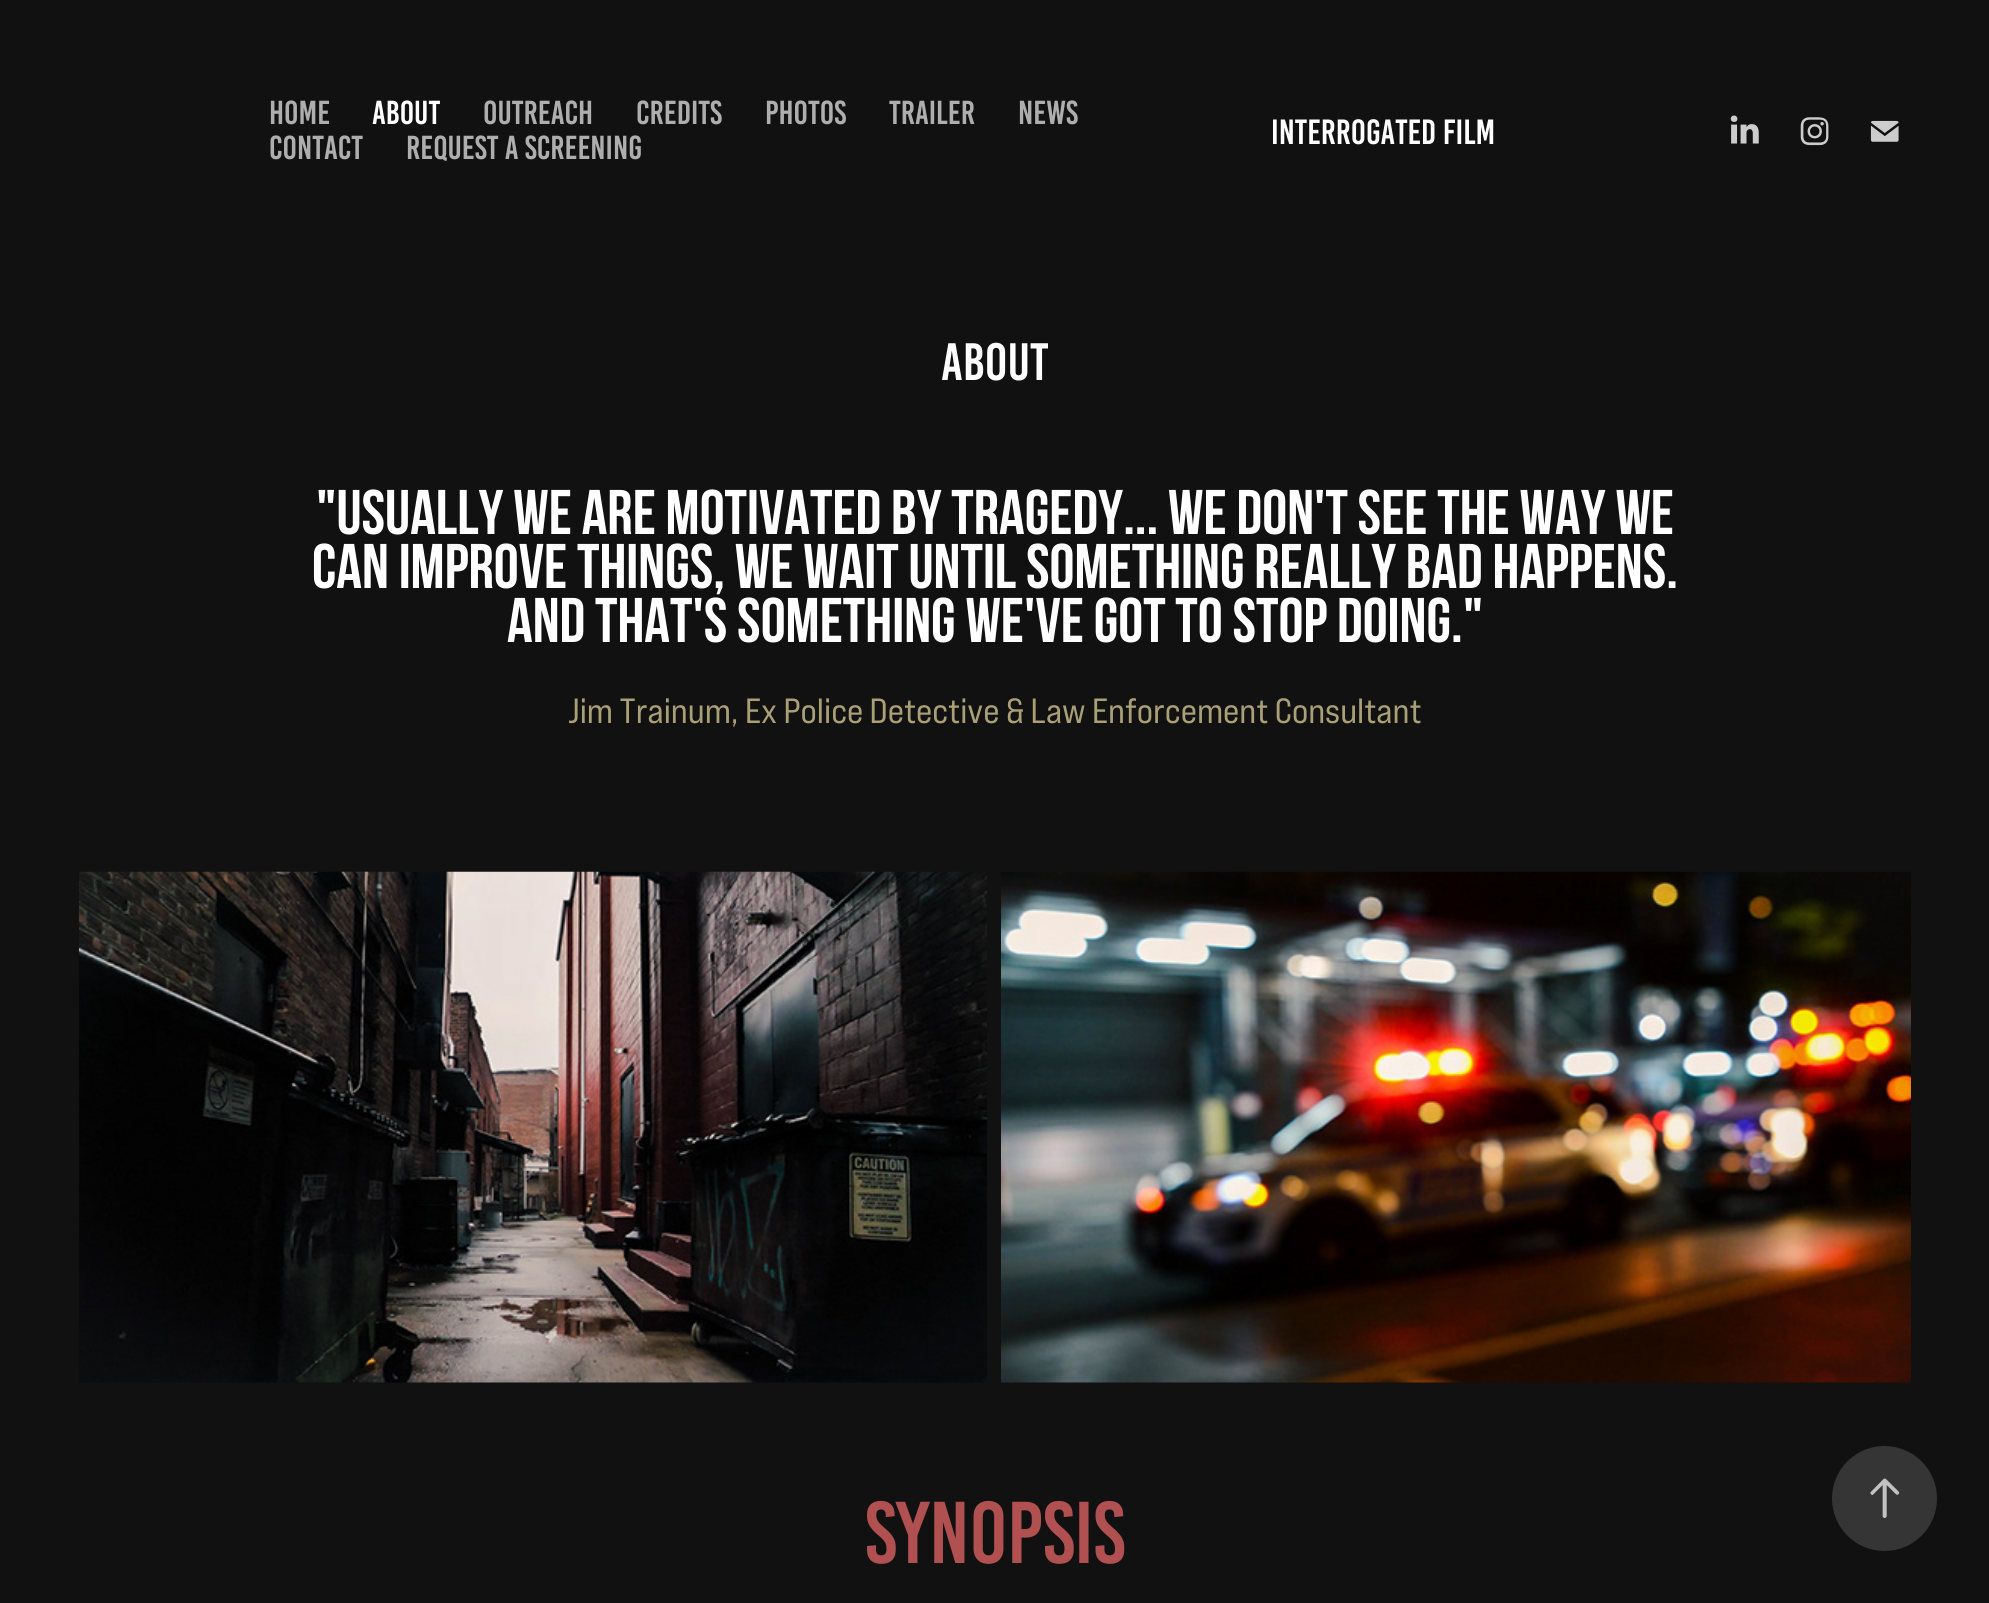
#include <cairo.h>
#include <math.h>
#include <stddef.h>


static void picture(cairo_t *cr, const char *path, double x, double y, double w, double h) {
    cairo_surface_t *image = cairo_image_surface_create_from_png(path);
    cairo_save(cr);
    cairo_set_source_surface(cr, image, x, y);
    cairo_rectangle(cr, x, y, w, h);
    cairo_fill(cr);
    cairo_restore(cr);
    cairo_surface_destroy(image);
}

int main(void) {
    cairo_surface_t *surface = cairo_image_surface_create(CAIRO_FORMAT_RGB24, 1989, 1603);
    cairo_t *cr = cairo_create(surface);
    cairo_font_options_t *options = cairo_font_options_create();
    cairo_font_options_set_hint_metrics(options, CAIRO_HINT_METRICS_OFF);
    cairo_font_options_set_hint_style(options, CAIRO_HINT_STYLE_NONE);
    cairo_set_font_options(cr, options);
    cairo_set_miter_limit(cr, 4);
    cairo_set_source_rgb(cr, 0.067, 0.067, 0.067);
    cairo_paint(cr);
    cairo_select_font_face(cr, "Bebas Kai", CAIRO_FONT_SLANT_NORMAL, CAIRO_FONT_WEIGHT_NORMAL);
    cairo_set_font_size(cr, 33.25);
    cairo_set_source_rgb(cr, 0.682, 0.682, 0.682);
    cairo_move_to(cr, 269, 124);
    cairo_show_text(cr, "HOME");
    cairo_set_source_rgb(cr, 1, 1, 1);
    cairo_move_to(cr, 372, 124);
    cairo_show_text(cr, "ABOUT");
    cairo_set_source_rgb(cr, 0.682, 0.682, 0.682);
    cairo_move_to(cr, 483, 124);
    cairo_show_text(cr, "OUTREACH");
    cairo_move_to(cr, 636, 124);
    cairo_show_text(cr, "CREDITS");
    cairo_move_to(cr, 765, 124);
    cairo_show_text(cr, "PHOTOS");
    cairo_move_to(cr, 889, 124);
    cairo_show_text(cr, "TRAILER");
    cairo_move_to(cr, 1018, 124);
    cairo_show_text(cr, "NEWS");
    cairo_move_to(cr, 269, 159);
    cairo_show_text(cr, "CONTACT");
    cairo_move_to(cr, 406, 159);
    cairo_show_text(cr, "REQUEST A SCREENING");
    cairo_set_font_size(cr, 35);
    cairo_set_source_rgb(cr, 1, 1, 1);
    cairo_move_to(cr, 1271, 144);
    cairo_show_text(cr, "INTERROGATED FILM");
    picture(cr, "img1.png", 1730, 115, 29, 29);
    picture(cr, "img2.png", 1800, 117, 29, 29);
    picture(cr, "img3.png", 1870, 120, 29, 22);
    cairo_set_font_size(cr, 52.5);
    cairo_move_to(cr, 941, 380);
    cairo_show_text(cr, "About");
    cairo_select_font_face(cr, "Bebas Neue", CAIRO_FONT_SLANT_NORMAL, CAIRO_FONT_WEIGHT_BOLD);
    cairo_set_font_size(cr, 63);
    cairo_move_to(cr, 316, 534);
    cairo_show_text(cr, "\"Usually we are motivated by tragedy... We don't see the way we");
    cairo_move_to(cr, 312, 588);
    cairo_show_text(cr, "can improve things, we wait until something really bad happens.");
    cairo_move_to(cr, 507, 642);
    cairo_show_text(cr, "And that's something we've got to stop doing.\"");
    cairo_select_font_face(cr, "Bebas Neue", CAIRO_FONT_SLANT_NORMAL, CAIRO_FONT_WEIGHT_NORMAL);
    cairo_set_font_size(cr, 35);
    cairo_set_source_rgb(cr, 0.667, 0.627, 0.463);
    cairo_move_to(cr, 568, 723);
    cairo_show_text(cr, "Jim Trainum, Ex Police Detective & Law Enforcement Consultant");
    picture(cr, "img4.png", 78, 871, 909, 512);
    picture(cr, "img5.png", 1001, 871, 910, 512);
    cairo_select_font_face(cr, "Bebas Kai", CAIRO_FONT_SLANT_NORMAL, CAIRO_FONT_WEIGHT_NORMAL);
    cairo_set_font_size(cr, 87.5);
    cairo_set_source_rgb(cr, 0.694, 0.314, 0.314);
    cairo_move_to(cr, 865, 1563);
    cairo_show_text(cr, "SYNOPSIS");
    cairo_set_source_rgb(cr, 0.208, 0.208, 0.208);
    cairo_new_path(cr);
    cairo_arc(cr, 1884.5, 1498.5, 52.5, 0, 2 * M_PI);
    cairo_fill(cr);
    picture(cr, "img6.png", 1870, 1478, 30, 40);
    cairo_surface_write_to_png(surface, "page.png");
    cairo_font_options_destroy(options);
    cairo_destroy(cr);
    cairo_surface_destroy(surface);
    return 0;
}
